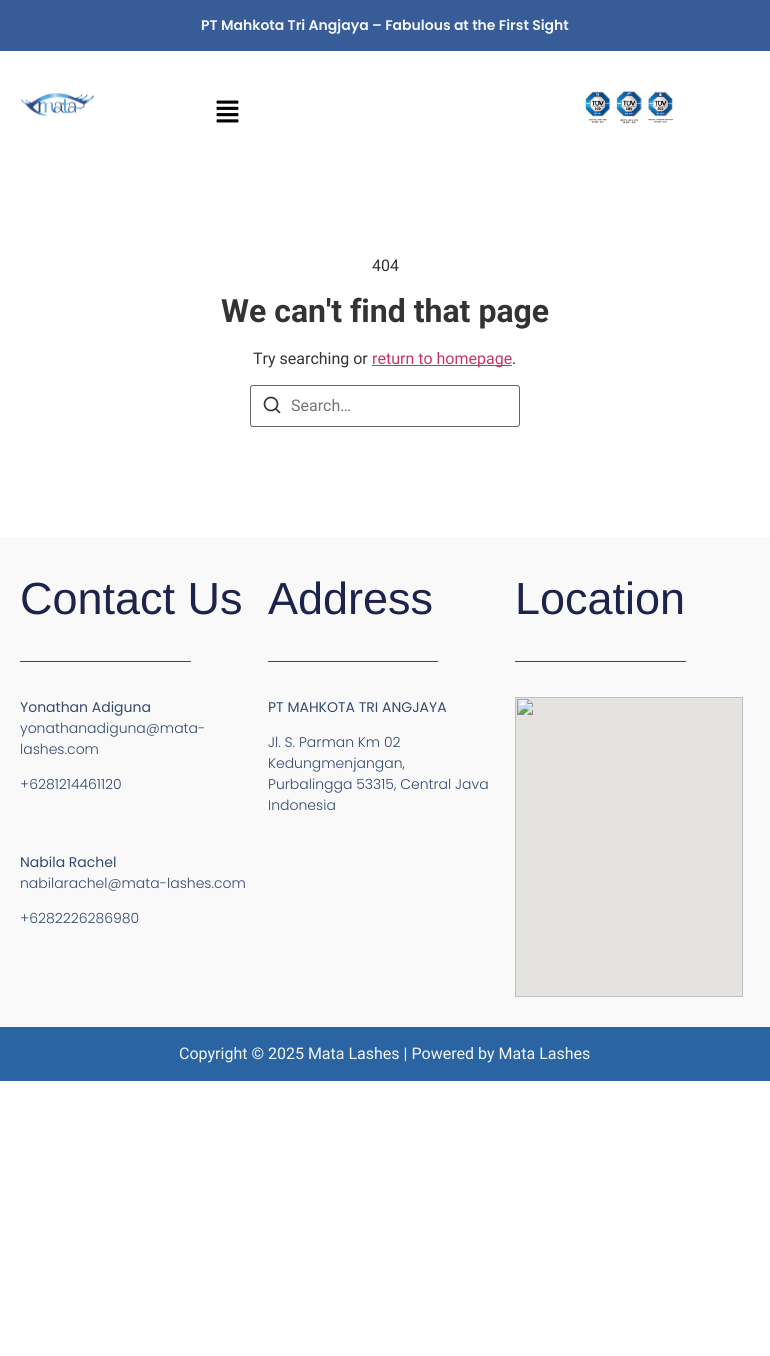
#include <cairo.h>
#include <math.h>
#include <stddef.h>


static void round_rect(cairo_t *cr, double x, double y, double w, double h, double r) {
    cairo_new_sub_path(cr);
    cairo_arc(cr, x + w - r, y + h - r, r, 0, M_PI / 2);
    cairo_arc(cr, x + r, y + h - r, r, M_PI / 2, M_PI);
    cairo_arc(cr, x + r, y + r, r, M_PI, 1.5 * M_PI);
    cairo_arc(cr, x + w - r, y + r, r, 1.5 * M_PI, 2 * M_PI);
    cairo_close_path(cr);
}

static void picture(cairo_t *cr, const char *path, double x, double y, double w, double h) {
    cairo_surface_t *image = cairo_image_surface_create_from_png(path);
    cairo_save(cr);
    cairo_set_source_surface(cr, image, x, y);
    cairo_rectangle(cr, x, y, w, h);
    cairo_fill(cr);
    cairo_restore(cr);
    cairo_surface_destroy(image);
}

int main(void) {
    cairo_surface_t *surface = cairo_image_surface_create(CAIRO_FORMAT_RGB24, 770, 1356);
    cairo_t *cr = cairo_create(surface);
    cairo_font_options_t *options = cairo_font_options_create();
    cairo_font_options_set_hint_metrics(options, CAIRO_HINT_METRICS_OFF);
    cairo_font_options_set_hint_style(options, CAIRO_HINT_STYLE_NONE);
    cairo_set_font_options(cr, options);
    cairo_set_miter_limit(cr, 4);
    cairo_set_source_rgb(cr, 1, 1, 1);
    cairo_paint(cr);
    cairo_set_source_rgb(cr, 0.22, 0.361, 0.596);
    cairo_rectangle(cr, 0, 0, 770, 51);
    cairo_fill(cr);
    cairo_select_font_face(cr, "Poppins SemiBold", CAIRO_FONT_SLANT_NORMAL, CAIRO_FONT_WEIGHT_NORMAL);
    cairo_set_font_size(cr, 14);
    cairo_set_source_rgb(cr, 0.953, 0.961, 0.973);
    cairo_move_to(cr, 201, 30);
    cairo_show_text(cr, "PT Mahkota Tri Angjaya – Fabulous at the First Sight");
    picture(cr, "img1.png", 21, 93, 73, 23);
    picture(cr, "img2.png", 216, 100, 23, 23);
    picture(cr, "img3.png", 585, 91, 88, 33);
    cairo_select_font_face(cr, "Roboto", CAIRO_FONT_SLANT_NORMAL, CAIRO_FONT_WEIGHT_NORMAL);
    cairo_set_font_size(cr, 16);
    cairo_set_source_rgb(cr, 0.2, 0.2, 0.2);
    cairo_move_to(cr, 372, 271);
    cairo_show_text(cr, "404");
    cairo_select_font_face(cr, "Roboto", CAIRO_FONT_SLANT_NORMAL, CAIRO_FONT_WEIGHT_BOLD);
    cairo_set_font_size(cr, 32);
    cairo_move_to(cr, 221, 322);
    cairo_show_text(cr, "We can't find that page");
    cairo_select_font_face(cr, "Roboto", CAIRO_FONT_SLANT_NORMAL, CAIRO_FONT_WEIGHT_NORMAL);
    cairo_set_font_size(cr, 16);
    cairo_move_to(cr, 253, 364);
    cairo_show_text(cr, "Try searching or");
    cairo_set_source_rgb(cr, 0.8, 0.2, 0.4);
    cairo_rectangle(cr, 372, 365, 140, 1);
    cairo_fill(cr);
    cairo_move_to(cr, 372, 364);
    cairo_show_text(cr, "return to homepage");
    cairo_set_source_rgb(cr, 0.2, 0.2, 0.2);
    cairo_move_to(cr, 512, 364);
    cairo_show_text(cr, ".");
    round_rect(cr, 250.5, 385.5, 269, 41, 2.5);
    cairo_set_source_rgb(cr, 0.4, 0.4, 0.4);
    cairo_set_line_width(cr, 1);
    cairo_stroke(cr);
    cairo_arc(cr, 271, 404, 6.5, 0, 2 * M_PI);
    cairo_set_source_rgb(cr, 0.2, 0.2, 0.2);
    cairo_set_line_width(cr, 1.7);
    cairo_stroke(cr);
    cairo_new_path(cr);
    cairo_move_to(cr, 279.5, 412.5);
    cairo_line_to(cr, 276, 409);
    cairo_set_line_cap(cr, CAIRO_LINE_CAP_ROUND);
    cairo_set_line_join(cr, CAIRO_LINE_JOIN_ROUND);
    cairo_stroke(cr);
    cairo_set_source_rgb(cr, 0.459, 0.459, 0.459);
    cairo_move_to(cr, 291, 411);
    cairo_show_text(cr, "Search…");
    cairo_set_source_rgb(cr, 0.98, 0.976, 0.976);
    cairo_rectangle(cr, 0, 537, 770, 490);
    cairo_fill(cr);
    cairo_select_font_face(cr, "Liberation Sans", CAIRO_FONT_SLANT_NORMAL, CAIRO_FONT_WEIGHT_NORMAL);
    cairo_set_font_size(cr, 45);
    cairo_set_source_rgb(cr, 0.11, 0.141, 0.294);
    cairo_move_to(cr, 20, 614);
    cairo_show_text(cr, "Contact Us");
    cairo_set_source_rgb(cr, 0.196, 0.29, 0.427);
    cairo_rectangle(cr, 20, 661, 171, 1);
    cairo_fill(cr);
    cairo_select_font_face(cr, "Poppins", CAIRO_FONT_SLANT_NORMAL, CAIRO_FONT_WEIGHT_NORMAL);
    cairo_set_font_size(cr, 14);
    cairo_move_to(cr, 20, 712);
    cairo_show_text(cr, "Yonathan Adiguna");
    cairo_select_font_face(cr, "Poppins Light", CAIRO_FONT_SLANT_NORMAL, CAIRO_FONT_WEIGHT_NORMAL);
    cairo_move_to(cr, 20, 733);
    cairo_show_text(cr, "yonathanadiguna@mata-");
    cairo_move_to(cr, 20, 754);
    cairo_show_text(cr, "lashes.com");
    cairo_move_to(cr, 20, 789);
    cairo_show_text(cr, "+6281214461120");
    cairo_select_font_face(cr, "Poppins", CAIRO_FONT_SLANT_NORMAL, CAIRO_FONT_WEIGHT_NORMAL);
    cairo_move_to(cr, 20, 867);
    cairo_show_text(cr, "Nabila Rachel");
    cairo_select_font_face(cr, "Poppins Light", CAIRO_FONT_SLANT_NORMAL, CAIRO_FONT_WEIGHT_NORMAL);
    cairo_move_to(cr, 20, 888);
    cairo_show_text(cr, "nabilarachel@mata-lashes.com");
    cairo_move_to(cr, 20, 923);
    cairo_show_text(cr, "+6282226286980");
    cairo_select_font_face(cr, "Liberation Sans", CAIRO_FONT_SLANT_NORMAL, CAIRO_FONT_WEIGHT_NORMAL);
    cairo_set_font_size(cr, 45);
    cairo_set_source_rgb(cr, 0.11, 0.141, 0.294);
    cairo_move_to(cr, 268, 614);
    cairo_show_text(cr, "Address");
    cairo_set_source_rgb(cr, 0.196, 0.29, 0.427);
    cairo_rectangle(cr, 268, 661, 170, 1);
    cairo_fill(cr);
    cairo_select_font_face(cr, "Poppins", CAIRO_FONT_SLANT_NORMAL, CAIRO_FONT_WEIGHT_NORMAL);
    cairo_set_font_size(cr, 14);
    cairo_move_to(cr, 268, 712);
    cairo_show_text(cr, "PT MAHKOTA TRI ANGJAYA");
    cairo_select_font_face(cr, "Poppins Light", CAIRO_FONT_SLANT_NORMAL, CAIRO_FONT_WEIGHT_NORMAL);
    cairo_move_to(cr, 268, 747);
    cairo_show_text(cr, "Jl. S. Parman Km 02");
    cairo_move_to(cr, 268, 768);
    cairo_show_text(cr, "Kedungmenjangan,");
    cairo_move_to(cr, 268, 789);
    cairo_show_text(cr, "Purbalingga 53315, Central Java");
    cairo_move_to(cr, 268, 810);
    cairo_show_text(cr, "Indonesia");
    cairo_select_font_face(cr, "Liberation Sans", CAIRO_FONT_SLANT_NORMAL, CAIRO_FONT_WEIGHT_NORMAL);
    cairo_set_font_size(cr, 45);
    cairo_set_source_rgb(cr, 0.11, 0.141, 0.294);
    cairo_move_to(cr, 515, 614);
    cairo_show_text(cr, "Location");
    cairo_set_source_rgb(cr, 0.196, 0.29, 0.427);
    cairo_rectangle(cr, 515, 661, 171, 1);
    cairo_fill(cr);
    picture(cr, "img4.png", 515, 697, 228, 300);
    cairo_set_source_rgb(cr, 0.165, 0.392, 0.639);
    cairo_rectangle(cr, 0, 1027, 770, 54);
    cairo_fill(cr);
    cairo_select_font_face(cr, "Roboto", CAIRO_FONT_SLANT_NORMAL, CAIRO_FONT_WEIGHT_NORMAL);
    cairo_set_font_size(cr, 16);
    cairo_set_source_rgb(cr, 0.953, 0.961, 0.973);
    cairo_move_to(cr, 179, 1059);
    cairo_show_text(cr, "Copyright © 2025 Mata Lashes | Powered by Mata Lashes");
    cairo_surface_write_to_png(surface, "page.png");
    cairo_font_options_destroy(options);
    cairo_destroy(cr);
    cairo_surface_destroy(surface);
    return 0;
}
